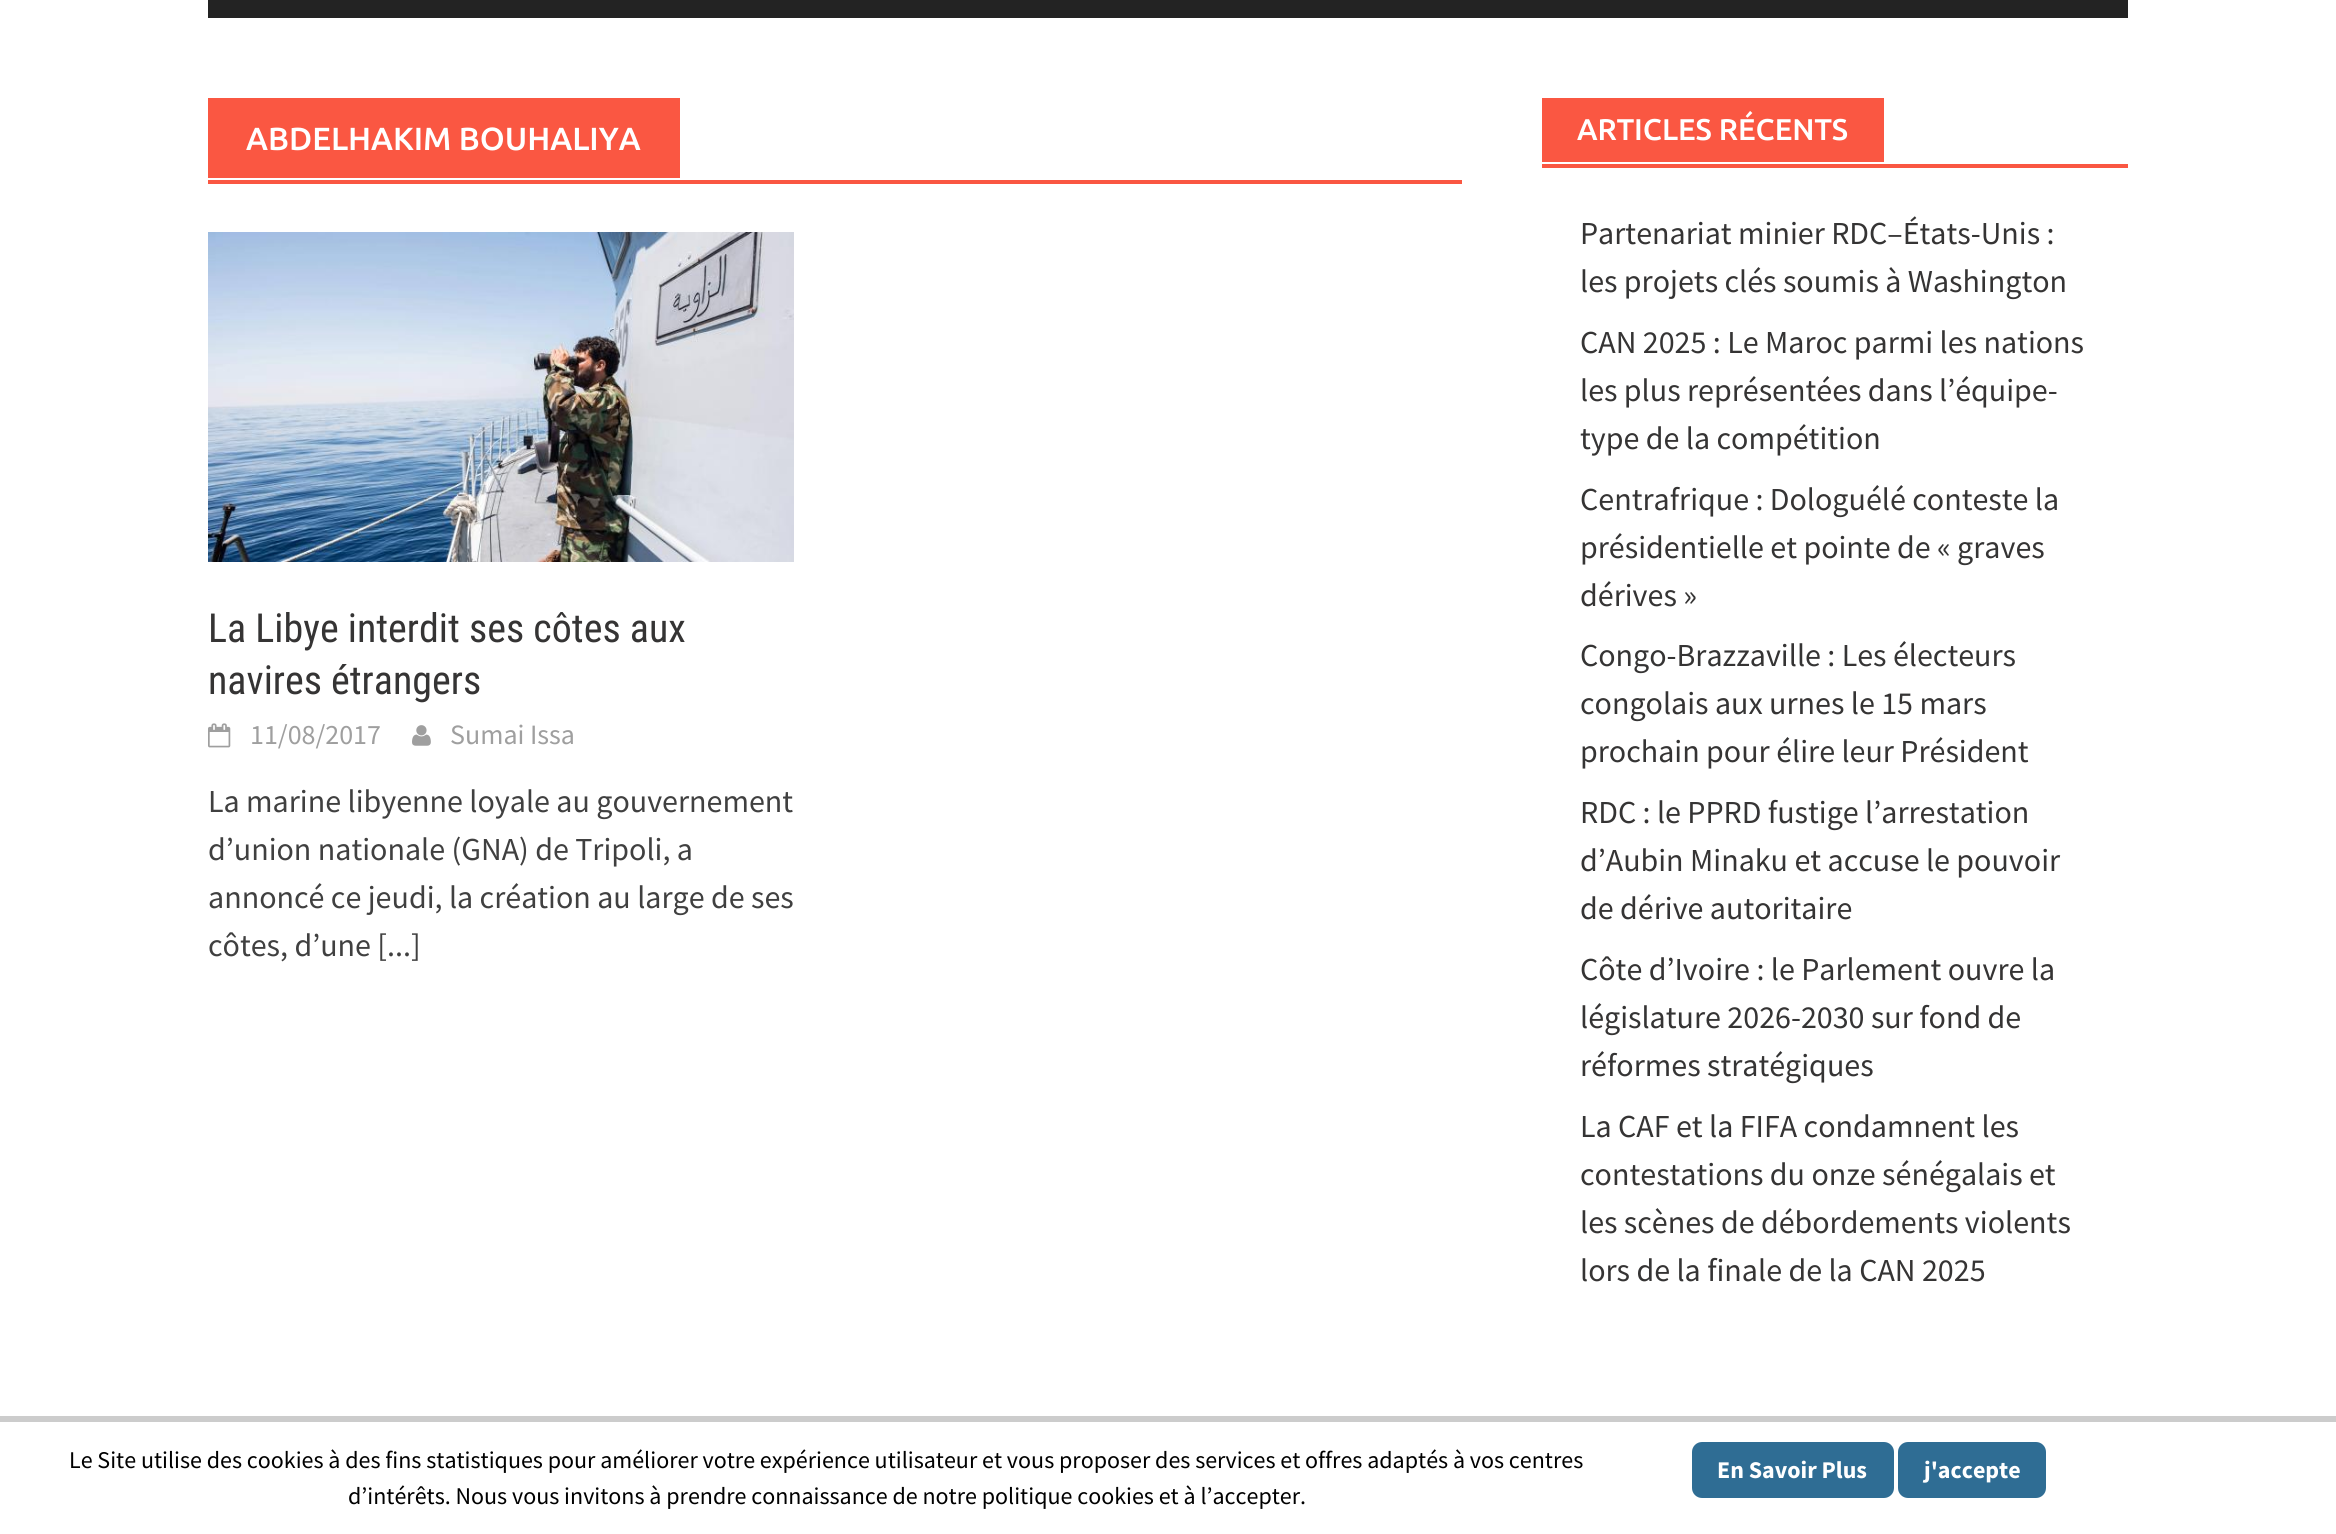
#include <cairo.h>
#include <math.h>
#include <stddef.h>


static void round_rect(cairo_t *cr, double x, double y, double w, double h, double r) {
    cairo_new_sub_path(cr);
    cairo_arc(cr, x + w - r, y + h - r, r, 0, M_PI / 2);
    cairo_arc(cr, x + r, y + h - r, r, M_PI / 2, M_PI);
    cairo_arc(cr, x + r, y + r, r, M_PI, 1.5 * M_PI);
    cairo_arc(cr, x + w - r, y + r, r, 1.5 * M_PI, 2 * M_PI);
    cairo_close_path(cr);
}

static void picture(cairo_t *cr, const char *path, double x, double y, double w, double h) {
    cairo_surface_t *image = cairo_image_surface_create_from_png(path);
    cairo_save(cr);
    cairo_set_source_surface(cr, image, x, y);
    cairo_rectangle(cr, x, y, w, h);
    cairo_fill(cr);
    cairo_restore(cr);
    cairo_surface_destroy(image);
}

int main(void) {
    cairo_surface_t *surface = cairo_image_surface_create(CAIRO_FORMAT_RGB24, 2336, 1534);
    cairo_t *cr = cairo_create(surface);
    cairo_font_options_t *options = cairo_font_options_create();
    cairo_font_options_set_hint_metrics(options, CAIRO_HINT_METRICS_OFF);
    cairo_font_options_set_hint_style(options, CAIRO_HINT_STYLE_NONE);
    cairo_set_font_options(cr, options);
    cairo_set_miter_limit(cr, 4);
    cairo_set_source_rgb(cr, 1, 1, 1);
    cairo_paint(cr);
    cairo_set_source_rgb(cr, 0.137, 0.137, 0.137);
    cairo_rectangle(cr, 208, 0, 1920, 18);
    cairo_fill(cr);
    cairo_set_source_rgb(cr, 0.98, 0.341, 0.259);
    cairo_rectangle(cr, 208, 180, 1254, 4);
    cairo_fill(cr);
    cairo_rectangle(cr, 208, 98, 472, 80);
    cairo_fill(cr);
    cairo_select_font_face(cr, "Ubuntu Medium", CAIRO_FONT_SLANT_NORMAL, CAIRO_FONT_WEIGHT_NORMAL);
    cairo_set_font_size(cr, 32);
    cairo_set_source_rgb(cr, 1, 1, 1);
    cairo_move_to(cr, 246, 150);
    cairo_show_text(cr, "ABDELHAKIM BOUHALIYA");
    picture(cr, "img1.png", 208, 232, 586, 330);
    cairo_select_font_face(cr, "Roboto Condensed", CAIRO_FONT_SLANT_NORMAL, CAIRO_FONT_WEIGHT_NORMAL);
    cairo_set_font_size(cr, 40);
    cairo_set_source_rgb(cr, 0.208, 0.204, 0.204);
    cairo_move_to(cr, 208, 642);
    cairo_show_text(cr, "La Libye interdit ses côtes aux");
    cairo_move_to(cr, 208, 694);
    cairo_show_text(cr, "navires étrangers");
    picture(cr, "img2.png", 208, 723, 23, 25);
    cairo_select_font_face(cr, "Source Sans Pro", CAIRO_FONT_SLANT_NORMAL, CAIRO_FONT_WEIGHT_NORMAL);
    cairo_set_font_size(cr, 28);
    cairo_set_source_rgb(cr, 0.624, 0.624, 0.624);
    cairo_move_to(cr, 250, 744);
    cairo_show_text(cr, "11/08/2017");
    picture(cr, "img3.png", 412, 725, 19, 21);
    cairo_move_to(cr, 450, 744);
    cairo_show_text(cr, "Sumai Issa");
    cairo_set_font_size(cr, 32);
    cairo_set_source_rgb(cr, 0.251, 0.251, 0.251);
    cairo_move_to(cr, 208, 812);
    cairo_show_text(cr, "La marine libyenne loyale au gouvernement");
    cairo_move_to(cr, 208, 860);
    cairo_show_text(cr, "d’union nationale (GNA) de Tripoli, a");
    cairo_move_to(cr, 208, 908);
    cairo_show_text(cr, "annoncé ce jeudi, la création au large de ses");
    cairo_move_to(cr, 208, 956);
    cairo_show_text(cr, "côtes, d’une [...]");
    cairo_set_source_rgb(cr, 0.98, 0.341, 0.259);
    cairo_rectangle(cr, 1542, 164, 586, 4);
    cairo_fill(cr);
    cairo_rectangle(cr, 1542, 98, 342, 64);
    cairo_fill(cr);
    cairo_select_font_face(cr, "Ubuntu Medium", CAIRO_FONT_SLANT_NORMAL, CAIRO_FONT_WEIGHT_NORMAL);
    cairo_set_font_size(cr, 30);
    cairo_set_source_rgb(cr, 1, 1, 1);
    cairo_move_to(cr, 1577, 140);
    cairo_show_text(cr, "ARTICLES RÉCENTS");
    cairo_select_font_face(cr, "Source Sans Pro", CAIRO_FONT_SLANT_NORMAL, CAIRO_FONT_WEIGHT_NORMAL);
    cairo_set_font_size(cr, 32);
    cairo_set_source_rgb(cr, 0.208, 0.204, 0.204);
    cairo_move_to(cr, 1580, 244);
    cairo_show_text(cr, "Partenariat minier RDC–États-Unis :");
    cairo_move_to(cr, 1580, 292);
    cairo_show_text(cr, "les projets clés soumis à Washington");
    cairo_move_to(cr, 1580, 353);
    cairo_show_text(cr, "CAN 2025 : Le Maroc parmi les nations");
    cairo_move_to(cr, 1580, 401);
    cairo_show_text(cr, "les plus représentées dans l’équipe-");
    cairo_move_to(cr, 1580, 449);
    cairo_show_text(cr, "type de la compétition");
    cairo_move_to(cr, 1580, 510);
    cairo_show_text(cr, "Centrafrique : Dologuélé conteste la");
    cairo_move_to(cr, 1580, 558);
    cairo_show_text(cr, "présidentielle et pointe de « graves");
    cairo_move_to(cr, 1580, 606);
    cairo_show_text(cr, "dérives »");
    cairo_move_to(cr, 1580, 666);
    cairo_show_text(cr, "Congo-Brazzaville : Les électeurs");
    cairo_move_to(cr, 1580, 714);
    cairo_show_text(cr, "congolais aux urnes le 15 mars");
    cairo_move_to(cr, 1580, 762);
    cairo_show_text(cr, "prochain pour élire leur Président");
    cairo_move_to(cr, 1580, 823);
    cairo_show_text(cr, "RDC : le PPRD fustige l’arrestation");
    cairo_move_to(cr, 1580, 871);
    cairo_show_text(cr, "d’Aubin Minaku et accuse le pouvoir");
    cairo_move_to(cr, 1580, 919);
    cairo_show_text(cr, "de dérive autoritaire");
    cairo_move_to(cr, 1580, 980);
    cairo_show_text(cr, "Côte d’Ivoire : le Parlement ouvre la");
    cairo_move_to(cr, 1580, 1028);
    cairo_show_text(cr, "législature 2026-2030 sur fond de");
    cairo_move_to(cr, 1580, 1076);
    cairo_show_text(cr, "réformes stratégiques");
    cairo_move_to(cr, 1580, 1137);
    cairo_show_text(cr, "La CAF et la FIFA condamnent les");
    cairo_move_to(cr, 1580, 1185);
    cairo_show_text(cr, "contestations du onze sénégalais et");
    cairo_move_to(cr, 1580, 1233);
    cairo_show_text(cr, "les scènes de débordements violents");
    cairo_move_to(cr, 1580, 1281);
    cairo_show_text(cr, "lors de la finale de la CAN 2025");
    cairo_set_source_rgb(cr, 0.8, 0.8, 0.8);
    cairo_rectangle(cr, 0, 1416, 2336, 6);
    cairo_fill(cr);
    cairo_set_font_size(cr, 24);
    cairo_set_source_rgb(cr, 0, 0, 0);
    cairo_move_to(cr, 69, 1468);
    cairo_show_text(cr, "Le Site utilise des cookies à des fins statistiques pour améliorer votre expérience utilisateur et vous proposer des services et offres adaptés à vos centres");
    cairo_move_to(cr, 348, 1504);
    cairo_show_text(cr, "d’intérêts. Nous vous invitons à prendre connaissance de notre politique cookies et à l’accepter.");
    cairo_set_source_rgb(cr, 0.184, 0.427, 0.58);
    round_rect(cr, 1692, 1442, 202, 56, 10);
    cairo_fill(cr);
    cairo_select_font_face(cr, "Source Sans Pro", CAIRO_FONT_SLANT_NORMAL, CAIRO_FONT_WEIGHT_BOLD);
    cairo_set_source_rgb(cr, 1, 1, 1);
    cairo_move_to(cr, 1717, 1478);
    cairo_show_text(cr, "En Savoir Plus");
    cairo_set_source_rgb(cr, 0.184, 0.427, 0.58);
    round_rect(cr, 1898, 1442, 148, 56, 10);
    cairo_fill(cr);
    cairo_set_source_rgb(cr, 1, 1, 1);
    cairo_move_to(cr, 1924, 1478);
    cairo_show_text(cr, "j'accepte");
    cairo_surface_write_to_png(surface, "page.png");
    cairo_font_options_destroy(options);
    cairo_destroy(cr);
    cairo_surface_destroy(surface);
    return 0;
}
